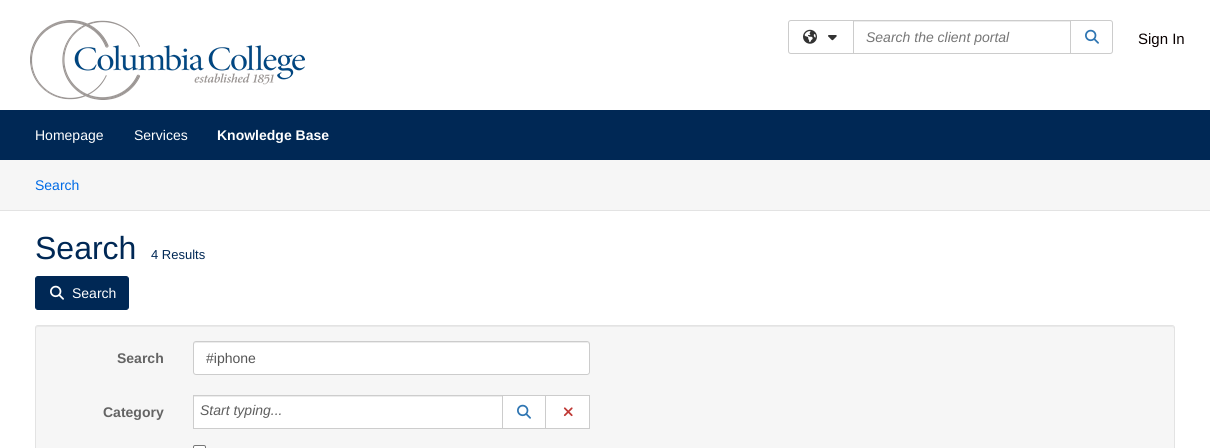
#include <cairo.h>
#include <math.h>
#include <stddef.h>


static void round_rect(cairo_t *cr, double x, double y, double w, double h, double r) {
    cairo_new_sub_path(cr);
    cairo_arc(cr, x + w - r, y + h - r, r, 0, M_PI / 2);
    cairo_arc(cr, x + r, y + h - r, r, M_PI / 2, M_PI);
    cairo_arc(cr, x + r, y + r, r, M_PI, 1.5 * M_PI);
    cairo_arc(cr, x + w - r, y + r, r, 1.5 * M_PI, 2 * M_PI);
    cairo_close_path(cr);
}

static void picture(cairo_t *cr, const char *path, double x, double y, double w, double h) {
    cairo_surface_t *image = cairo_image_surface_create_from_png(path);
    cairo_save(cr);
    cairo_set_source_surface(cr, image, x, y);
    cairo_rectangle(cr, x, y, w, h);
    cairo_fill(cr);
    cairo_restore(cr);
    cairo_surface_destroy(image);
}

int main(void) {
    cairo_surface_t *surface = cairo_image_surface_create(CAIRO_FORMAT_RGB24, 1210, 448);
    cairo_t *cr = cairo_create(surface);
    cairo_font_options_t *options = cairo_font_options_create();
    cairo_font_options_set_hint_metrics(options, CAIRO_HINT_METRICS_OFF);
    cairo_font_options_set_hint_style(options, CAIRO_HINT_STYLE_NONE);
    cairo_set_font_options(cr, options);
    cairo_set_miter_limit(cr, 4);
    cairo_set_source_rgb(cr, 1, 1, 1);
    cairo_paint(cr);
    picture(cr, "img1.png", 30, 20, 275, 80);
    cairo_new_path(cr);
    cairo_move_to(cr, 791, 20.5);
    cairo_line_to(cr, 853.5, 20.5);
    cairo_line_to(cr, 853.5, 53.5);
    cairo_line_to(cr, 791, 53.5);
    cairo_curve_to(cr, 789.5, 53.5, 788.5, 52.5, 788.5, 51);
    cairo_line_to(cr, 788.5, 23);
    cairo_curve_to(cr, 788.5, 21.5, 789.5, 20.5, 791, 20.5);
    cairo_close_path(cr);
    cairo_set_source_rgb(cr, 0.8, 0.8, 0.8);
    cairo_set_line_width(cr, 1);
    cairo_stroke(cr);
    picture(cr, "img2.png", 803, 29, 14, 15);
    picture(cr, "img3.png", 828, 35, 9, 6);
    cairo_set_source_rgb(cr, 0.925, 0.925, 0.925);
    cairo_rectangle(cr, 854, 21, 216, 1);
    cairo_fill(cr);
    cairo_rectangle(cr, 853.5, 20.5, 217, 33);
    cairo_set_source_rgb(cr, 0.8, 0.8, 0.8);
    cairo_stroke(cr);
    cairo_select_font_face(cr, "Liberation Sans", CAIRO_FONT_SLANT_ITALIC, CAIRO_FONT_WEIGHT_NORMAL);
    cairo_set_font_size(cr, 14);
    cairo_set_source_rgb(cr, 0.463, 0.463, 0.463);
    cairo_move_to(cr, 866, 42);
    cairo_show_text(cr, "Search the client portal");
    cairo_set_source_rgb(cr, 1, 1, 1);
    cairo_new_path(cr);
    cairo_move_to(cr, 1070.5, 20.5);
    cairo_line_to(cr, 1110, 20.5);
    cairo_curve_to(cr, 1111.5, 20.5, 1112.5, 21.5, 1112.5, 23);
    cairo_line_to(cr, 1112.5, 51);
    cairo_curve_to(cr, 1112.5, 52.5, 1111.5, 53.5, 1110, 53.5);
    cairo_line_to(cr, 1070.5, 53.5);
    cairo_close_path(cr);
    cairo_fill_preserve(cr);
    cairo_set_source_rgb(cr, 0.8, 0.8, 0.8);
    cairo_stroke(cr);
    picture(cr, "img4.png", 1085, 29, 14, 15);
    cairo_select_font_face(cr, "Liberation Sans", CAIRO_FONT_SLANT_NORMAL, CAIRO_FONT_WEIGHT_NORMAL);
    cairo_set_font_size(cr, 15);
    cairo_set_source_rgb(cr, 0.039, 0, 0);
    cairo_move_to(cr, 1138, 44);
    cairo_show_text(cr, "Sign In");
    cairo_set_source_rgb(cr, 0, 0.157, 0.333);
    cairo_rectangle(cr, 0, 110, 1210, 50);
    cairo_fill(cr);
    cairo_set_font_size(cr, 14);
    cairo_set_source_rgb(cr, 1, 1, 1);
    cairo_move_to(cr, 35, 140);
    cairo_show_text(cr, "Homepage");
    cairo_move_to(cr, 134, 140);
    cairo_show_text(cr, "Services");
    cairo_select_font_face(cr, "Liberation Sans", CAIRO_FONT_SLANT_NORMAL, CAIRO_FONT_WEIGHT_BOLD);
    cairo_move_to(cr, 217, 140);
    cairo_show_text(cr, "Knowledge Base");
    cairo_set_source_rgb(cr, 0.961, 0.961, 0.961);
    cairo_rectangle(cr, 0, 160, 1210, 50);
    cairo_fill(cr);
    cairo_set_source_rgb(cr, 0.89, 0.89, 0.89);
    cairo_rectangle(cr, 0, 210, 1210, 1);
    cairo_fill(cr);
    cairo_select_font_face(cr, "Liberation Sans", CAIRO_FONT_SLANT_NORMAL, CAIRO_FONT_WEIGHT_NORMAL);
    cairo_set_source_rgb(cr, 0, 0.42, 0.902);
    cairo_move_to(cr, 35, 190);
    cairo_show_text(cr, "Search");
    cairo_set_font_size(cr, 32);
    cairo_set_source_rgb(cr, 0, 0.157, 0.333);
    cairo_move_to(cr, 35, 259);
    cairo_show_text(cr, "Search");
    cairo_set_font_size(cr, 13);
    cairo_move_to(cr, 151, 259);
    cairo_show_text(cr, "4 Results");
    round_rect(cr, 35.5, 276.5, 93, 33, 2.5);
    cairo_fill_preserve(cr);
    cairo_stroke(cr);
    picture(cr, "img5.png", 50, 285, 14, 15);
    cairo_set_font_size(cr, 14);
    cairo_set_source_rgb(cr, 1, 1, 1);
    cairo_move_to(cr, 72, 298);
    cairo_show_text(cr, "Search");
    cairo_set_source_rgb(cr, 0.961, 0.961, 0.961);
    round_rect(cr, 35, 325, 1140, 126, 3);
    cairo_fill(cr);
    cairo_set_source_rgb(cr, 0.914, 0.914, 0.914);
    cairo_new_path(cr);
    cairo_move_to(cr, 38, 327);
    cairo_line_to(cr, 1172, 327);
    cairo_curve_to(cr, 1173, 327, 1174, 328, 1174, 329);
    cairo_line_to(cr, 1174, 327);
    cairo_line_to(cr, 1172, 326);
    cairo_line_to(cr, 38, 326);
    cairo_curve_to(cr, 37, 326, 36, 327, 36, 328);
    cairo_line_to(cr, 36, 329);
    cairo_curve_to(cr, 36, 328, 37, 327, 38, 327);
    cairo_close_path(cr);
    cairo_fill(cr);
    round_rect(cr, 35.5, 325.5, 1139, 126, 2.5);
    cairo_set_source_rgb(cr, 0.89, 0.89, 0.89);
    cairo_stroke(cr);
    cairo_select_font_face(cr, "Liberation Sans", CAIRO_FONT_SLANT_NORMAL, CAIRO_FONT_WEIGHT_BOLD);
    cairo_set_source_rgb(cr, 0.392, 0.392, 0.392);
    cairo_move_to(cr, 117, 363);
    cairo_show_text(cr, "Search");
    cairo_set_source_rgb(cr, 1, 1, 1);
    round_rect(cr, 193, 341, 397, 34, 3);
    cairo_fill(cr);
    cairo_set_source_rgb(cr, 0.925, 0.925, 0.925);
    cairo_new_path(cr);
    cairo_move_to(cr, 196, 343);
    cairo_line_to(cr, 587, 343);
    cairo_curve_to(cr, 588, 343, 589, 344, 589, 345);
    cairo_line_to(cr, 589, 343);
    cairo_line_to(cr, 587, 342);
    cairo_line_to(cr, 195, 342);
    cairo_curve_to(cr, 194, 343, 194, 344, 194, 345);
    cairo_curve_to(cr, 194, 344, 195, 343, 196, 343);
    cairo_close_path(cr);
    cairo_fill(cr);
    round_rect(cr, 193.5, 341.5, 396, 33, 2.5);
    cairo_set_source_rgb(cr, 0.8, 0.8, 0.8);
    cairo_stroke(cr);
    cairo_select_font_face(cr, "Liberation Sans", CAIRO_FONT_SLANT_NORMAL, CAIRO_FONT_WEIGHT_NORMAL);
    cairo_set_source_rgb(cr, 0.333, 0.333, 0.333);
    cairo_move_to(cr, 206, 363);
    cairo_show_text(cr, "#iphone");
    cairo_select_font_face(cr, "Liberation Sans", CAIRO_FONT_SLANT_NORMAL, CAIRO_FONT_WEIGHT_BOLD);
    cairo_set_source_rgb(cr, 0.392, 0.392, 0.392);
    cairo_move_to(cr, 103, 417);
    cairo_show_text(cr, "Category");
    cairo_set_source_rgb(cr, 1, 1, 1);
    cairo_rectangle(cr, 194, 397, 308, 31);
    cairo_fill(cr);
    cairo_set_source_rgb(cr, 0.925, 0.925, 0.925);
    cairo_rectangle(cr, 194, 396, 308, 1);
    cairo_fill(cr);
    cairo_rectangle(cr, 193.5, 395.5, 309, 33);
    cairo_set_source_rgb(cr, 0.804, 0.804, 0.804);
    cairo_stroke(cr);
    cairo_select_font_face(cr, "Liberation Sans", CAIRO_FONT_SLANT_ITALIC, CAIRO_FONT_WEIGHT_NORMAL);
    cairo_set_source_rgb(cr, 0.369, 0.369, 0.369);
    cairo_move_to(cr, 200, 415);
    cairo_show_text(cr, "Start typing...");
    cairo_set_source_rgb(cr, 1, 1, 1);
    cairo_rectangle(cr, 502.5, 395.5, 43, 33);
    cairo_fill_preserve(cr);
    cairo_set_source_rgb(cr, 0.8, 0.8, 0.8);
    cairo_stroke(cr);
    picture(cr, "img4.png", 517, 404, 14, 15);
    cairo_set_source_rgb(cr, 1, 1, 1);
    cairo_rectangle(cr, 545.5, 395.5, 44, 33);
    cairo_fill_preserve(cr);
    cairo_set_source_rgb(cr, 0.8, 0.8, 0.8);
    cairo_stroke(cr);
    picture(cr, "img6.png", 563, 407, 10, 10);
    cairo_set_source_rgb(cr, 1, 1, 1);
    round_rect(cr, 193.5, 445.5, 12, 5, 1.5);
    cairo_fill_preserve(cr);
    cairo_set_source_rgb(cr, 0.463, 0.463, 0.463);
    cairo_stroke(cr);
    cairo_surface_write_to_png(surface, "page.png");
    cairo_font_options_destroy(options);
    cairo_destroy(cr);
    cairo_surface_destroy(surface);
    return 0;
}
